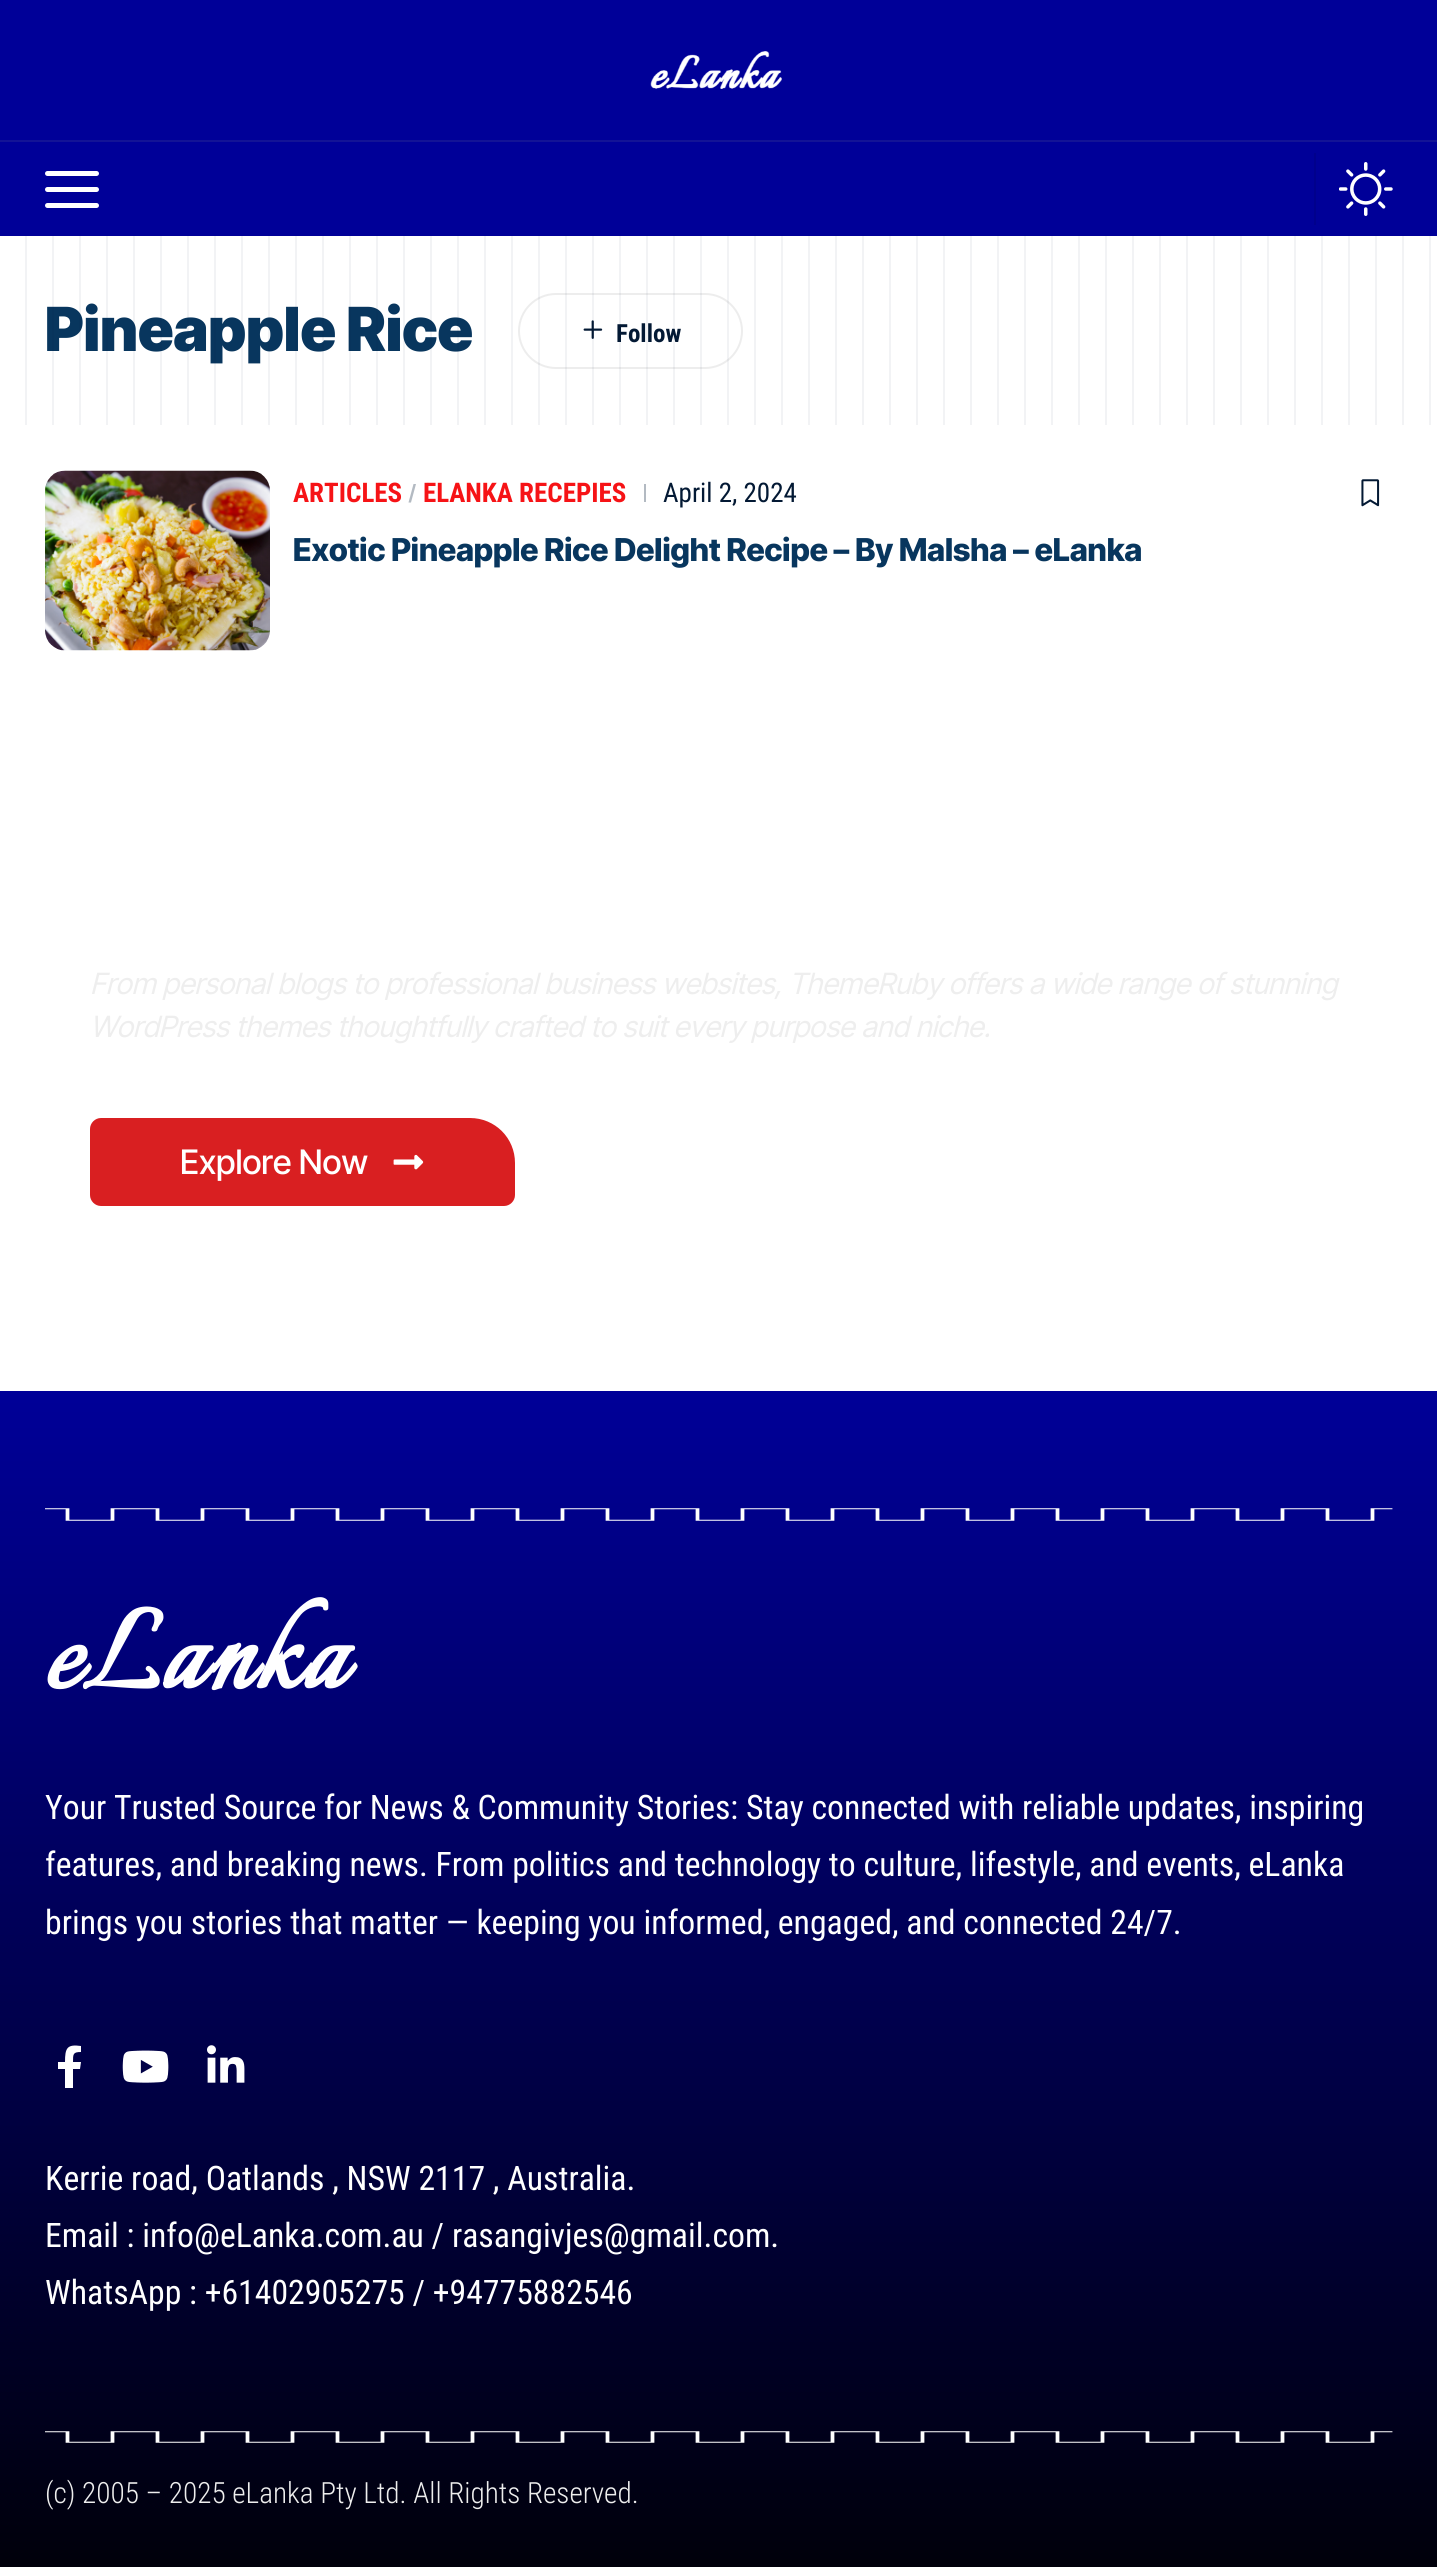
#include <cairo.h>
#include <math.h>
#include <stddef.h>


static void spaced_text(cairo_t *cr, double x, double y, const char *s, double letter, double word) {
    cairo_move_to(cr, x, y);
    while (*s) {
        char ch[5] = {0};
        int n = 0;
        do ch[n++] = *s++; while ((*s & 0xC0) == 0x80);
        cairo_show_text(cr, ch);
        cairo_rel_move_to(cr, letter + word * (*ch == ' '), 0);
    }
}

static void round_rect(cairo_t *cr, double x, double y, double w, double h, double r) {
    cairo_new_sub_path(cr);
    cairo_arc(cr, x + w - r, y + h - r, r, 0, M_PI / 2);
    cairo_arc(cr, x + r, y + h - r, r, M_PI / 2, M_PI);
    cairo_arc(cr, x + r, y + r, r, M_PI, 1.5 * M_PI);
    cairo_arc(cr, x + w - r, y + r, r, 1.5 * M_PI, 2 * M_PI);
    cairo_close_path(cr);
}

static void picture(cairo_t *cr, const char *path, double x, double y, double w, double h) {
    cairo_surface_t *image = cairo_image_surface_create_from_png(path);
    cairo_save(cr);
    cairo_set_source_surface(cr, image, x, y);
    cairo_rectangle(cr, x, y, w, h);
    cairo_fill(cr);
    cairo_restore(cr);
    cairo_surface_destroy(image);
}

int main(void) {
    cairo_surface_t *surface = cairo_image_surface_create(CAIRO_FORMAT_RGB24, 1437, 2567);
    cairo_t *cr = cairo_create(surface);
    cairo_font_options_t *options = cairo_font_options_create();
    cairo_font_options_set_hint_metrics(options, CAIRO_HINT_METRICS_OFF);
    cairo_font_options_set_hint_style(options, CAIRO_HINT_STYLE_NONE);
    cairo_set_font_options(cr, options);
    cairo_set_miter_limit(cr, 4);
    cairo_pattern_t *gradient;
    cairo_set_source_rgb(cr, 1, 1, 1);
    cairo_paint(cr);
    cairo_set_source_rgb(cr, 0, 0, 0.596);
    cairo_rectangle(cr, 0, 0, 1437, 236);
    cairo_fill(cr);
    picture(cr, "img1.png", 650, 51, 132, 38);
    cairo_set_source_rgb(cr, 0.078, 0.078, 0.588);
    cairo_rectangle(cr, 0, 140, 1437, 2);
    cairo_fill(cr);
    cairo_set_source_rgb(cr, 1, 1, 1);
    round_rect(cr, 45, 171, 54, 5, 2.5);
    cairo_fill(cr);
    round_rect(cr, 45, 187, 54, 5, 2.5);
    cairo_fill(cr);
    round_rect(cr, 45, 203, 54, 5, 2.5);
    cairo_fill(cr);
    cairo_set_source_rgb(cr, 0, 0, 0.549);
    cairo_rectangle(cr, 1314, 153, 2, 72);
    cairo_fill(cr);
    picture(cr, "img2.png", 1339, 162, 54, 54);
    cairo_select_font_face(cr, "Inter Tight Black", CAIRO_FONT_SLANT_NORMAL, CAIRO_FONT_WEIGHT_NORMAL);
    cairo_set_font_size(cr, 60.75);
    cairo_set_source_rgb(cr, 0.035, 0.212, 0.369);
    cairo_move_to(cr, 45, 351);
    cairo_show_text(cr, "Pineapple Rice");
    round_rect(cr, 519, 294, 223, 74, 37);
    cairo_set_source_rgb(cr, 0.929, 0.929, 0.929);
    cairo_stroke(cr);
    picture(cr, "img4.png", 583, 320, 20, 19);
    cairo_select_font_face(cr, "Roboto Condensed", CAIRO_FONT_SLANT_NORMAL, CAIRO_FONT_WEIGHT_BOLD);
    cairo_set_font_size(cr, 25);
    cairo_set_source_rgb(cr, 0.012, 0.098, 0.204);
    cairo_move_to(cr, 616, 342);
    cairo_show_text(cr, "Follow");
    picture(cr, "img3.png", 25, 236, 1406, 189);
    picture(cr, "img5.png", 45, 470, 225, 181);
    cairo_set_font_size(cr, 27);
    cairo_set_source_rgb(cr, 0.961, 0.078, 0.086);
    cairo_move_to(cr, 293, 502);
    cairo_show_text(cr, "ARTICLES");
    cairo_set_source_rgb(cr, 0.702, 0.729, 0.761);
    cairo_new_path(cr);
    cairo_move_to(cr, 413.5, 484);
    cairo_line_to(cr, 416, 484);
    cairo_line_to(cr, 411, 502.5);
    cairo_line_to(cr, 408.5, 502.5);
    cairo_close_path(cr);
    cairo_fill(cr);
    cairo_set_source_rgb(cr, 0.961, 0.078, 0.086);
    cairo_move_to(cr, 423, 502);
    cairo_show_text(cr, "ELANKA RECEPIES");
    cairo_set_source_rgb(cr, 0.702, 0.729, 0.761);
    cairo_rectangle(cr, 644, 484, 2, 18);
    cairo_fill(cr);
    cairo_select_font_face(cr, "Roboto Condensed", CAIRO_FONT_SLANT_NORMAL, CAIRO_FONT_WEIGHT_NORMAL);
    cairo_set_source_rgb(cr, 0.012, 0.098, 0.204);
    cairo_move_to(cr, 663, 502);
    cairo_show_text(cr, "April 2, 2024");
    picture(cr, "img6.png", 1361, 479, 19, 28);
    cairo_select_font_face(cr, "Inter Tight ExtraBold", CAIRO_FONT_SLANT_NORMAL, CAIRO_FONT_WEIGHT_NORMAL);
    cairo_set_font_size(cr, 31.5);
    cairo_set_source_rgb(cr, 0.035, 0.212, 0.369);
    cairo_move_to(cr, 293, 561);
    cairo_show_text(cr, "Exotic Pineapple Rice Delight Recipe – By Malsha – eLanka");
    cairo_select_font_face(cr, "Inter Tight", CAIRO_FONT_SLANT_ITALIC, CAIRO_FONT_WEIGHT_NORMAL);
    cairo_set_font_size(cr, 29.25);
    cairo_set_source_rgb(cr, 0.933, 0.933, 0.933);
    cairo_move_to(cr, 90, 994);
    cairo_show_text(cr, "From personal blogs to professional business websites, ThemeRuby offers a wide range of stunning");
    cairo_move_to(cr, 90, 1037);
    cairo_show_text(cr, "WordPress themes thoughtfully crafted to suit every purpose and niche.");
    cairo_set_source_rgb(cr, 0.851, 0.122, 0.129);
    cairo_new_path(cr);
    cairo_move_to(cr, 101, 1118);
    cairo_line_to(cr, 470, 1118);
    cairo_curve_to(cr, 495, 1118, 515, 1138, 515, 1163);
    cairo_line_to(cr, 515, 1195);
    cairo_curve_to(cr, 515, 1201, 510, 1206, 504, 1206);
    cairo_line_to(cr, 101, 1206);
    cairo_curve_to(cr, 95, 1206, 90, 1201, 90, 1195);
    cairo_line_to(cr, 90, 1129);
    cairo_curve_to(cr, 90, 1123, 95, 1118, 101, 1118);
    cairo_close_path(cr);
    cairo_fill(cr);
    cairo_select_font_face(cr, "Inter Tight Medium", CAIRO_FONT_SLANT_NORMAL, CAIRO_FONT_WEIGHT_NORMAL);
    cairo_set_font_size(cr, 33.75);
    cairo_set_source_rgb(cr, 1, 1, 1);
    cairo_move_to(cr, 180, 1174);
    cairo_show_text(cr, "Explore Now");
    picture(cr, "img7.png", 393, 1154, 31, 16);
    gradient = cairo_pattern_create_linear(719, 1391, 719, 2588);
    cairo_pattern_add_color_stop_rgba(gradient, 0, 0, 0, 0.596, 1);
    cairo_pattern_add_color_stop_rgba(gradient, 1, 0, 0, 0.031, 1);
    cairo_set_source(cr, gradient);
    cairo_pattern_destroy(gradient);
    cairo_rectangle(cr, 0, 1391, 1437, 1176);
    cairo_fill(cr);
    picture(cr, "img8.png", 45, 1508, 1348, 13);
    cairo_select_font_face(cr, "Italianno", CAIRO_FONT_SLANT_NORMAL, CAIRO_FONT_WEIGHT_BOLD);
    cairo_set_font_size(cr, 142);
    cairo_set_source_rgb(cr, 1, 1, 1);
    spaced_text(cr, 45, 1688, "eLanka", 2.25, 0);
    cairo_select_font_face(cr, "Roboto Condensed", CAIRO_FONT_SLANT_NORMAL, CAIRO_FONT_WEIGHT_NORMAL);
    cairo_set_font_size(cr, 33.75);
    cairo_move_to(cr, 45, 1819);
    cairo_show_text(cr, "Your Trusted Source for News & Community Stories: Stay connected with reliable updates, inspiring");
    cairo_move_to(cr, 45, 1876);
    cairo_show_text(cr, "features, and breaking news. From politics and technology to culture, lifestyle, and events, eLanka");
    cairo_move_to(cr, 45, 1934);
    cairo_show_text(cr, "brings you stories that matter — keeping you informed, engaged, and connected 24/7.");
    cairo_new_path(cr);
    cairo_move_to(cr, 80, 2069);
    cairo_line_to(cr, 81, 2062);
    cairo_line_to(cr, 73, 2062);
    cairo_curve_to(cr, 73, 2054, 73, 2052, 81, 2052);
    cairo_line_to(cr, 81, 2046);
    cairo_curve_to(cr, 67, 2044, 65, 2048, 65, 2062);
    cairo_line_to(cr, 58, 2062);
    cairo_line_to(cr, 58, 2069);
    cairo_line_to(cr, 65, 2069);
    cairo_line_to(cr, 65, 2088);
    cairo_line_to(cr, 73, 2088);
    cairo_line_to(cr, 73, 2069);
    cairo_close_path(cr);
    cairo_fill(cr);
    picture(cr, "img9.png", 122, 2050, 47, 33);
    picture(cr, "img10.png", 207, 2045, 38, 38);
    cairo_move_to(cr, 45, 2190);
    cairo_show_text(cr, "Kerrie road, Oatlands , NSW 2117 , Australia.");
    cairo_move_to(cr, 45, 2247);
    cairo_show_text(cr, "Email : info@eLanka.com.au / rasangivjes@gmail.com.");
    cairo_move_to(cr, 45, 2304);
    cairo_show_text(cr, "WhatsApp : +61402905275 / +94775882546");
    picture(cr, "img11.png", 45, 2431, 1348, 12);
    cairo_select_font_face(cr, "Roboto Condensed Light", CAIRO_FONT_SLANT_NORMAL, CAIRO_FONT_WEIGHT_NORMAL);
    cairo_set_font_size(cr, 29.25);
    cairo_set_source_rgb(cr, 0.933, 0.933, 0.933);
    cairo_move_to(cr, 45, 2503);
    cairo_show_text(cr, "(c) 2005 – 2025 eLanka Pty Ltd. All Rights Reserved.");
    cairo_surface_write_to_png(surface, "page.png");
    cairo_font_options_destroy(options);
    cairo_destroy(cr);
    cairo_surface_destroy(surface);
    return 0;
}
